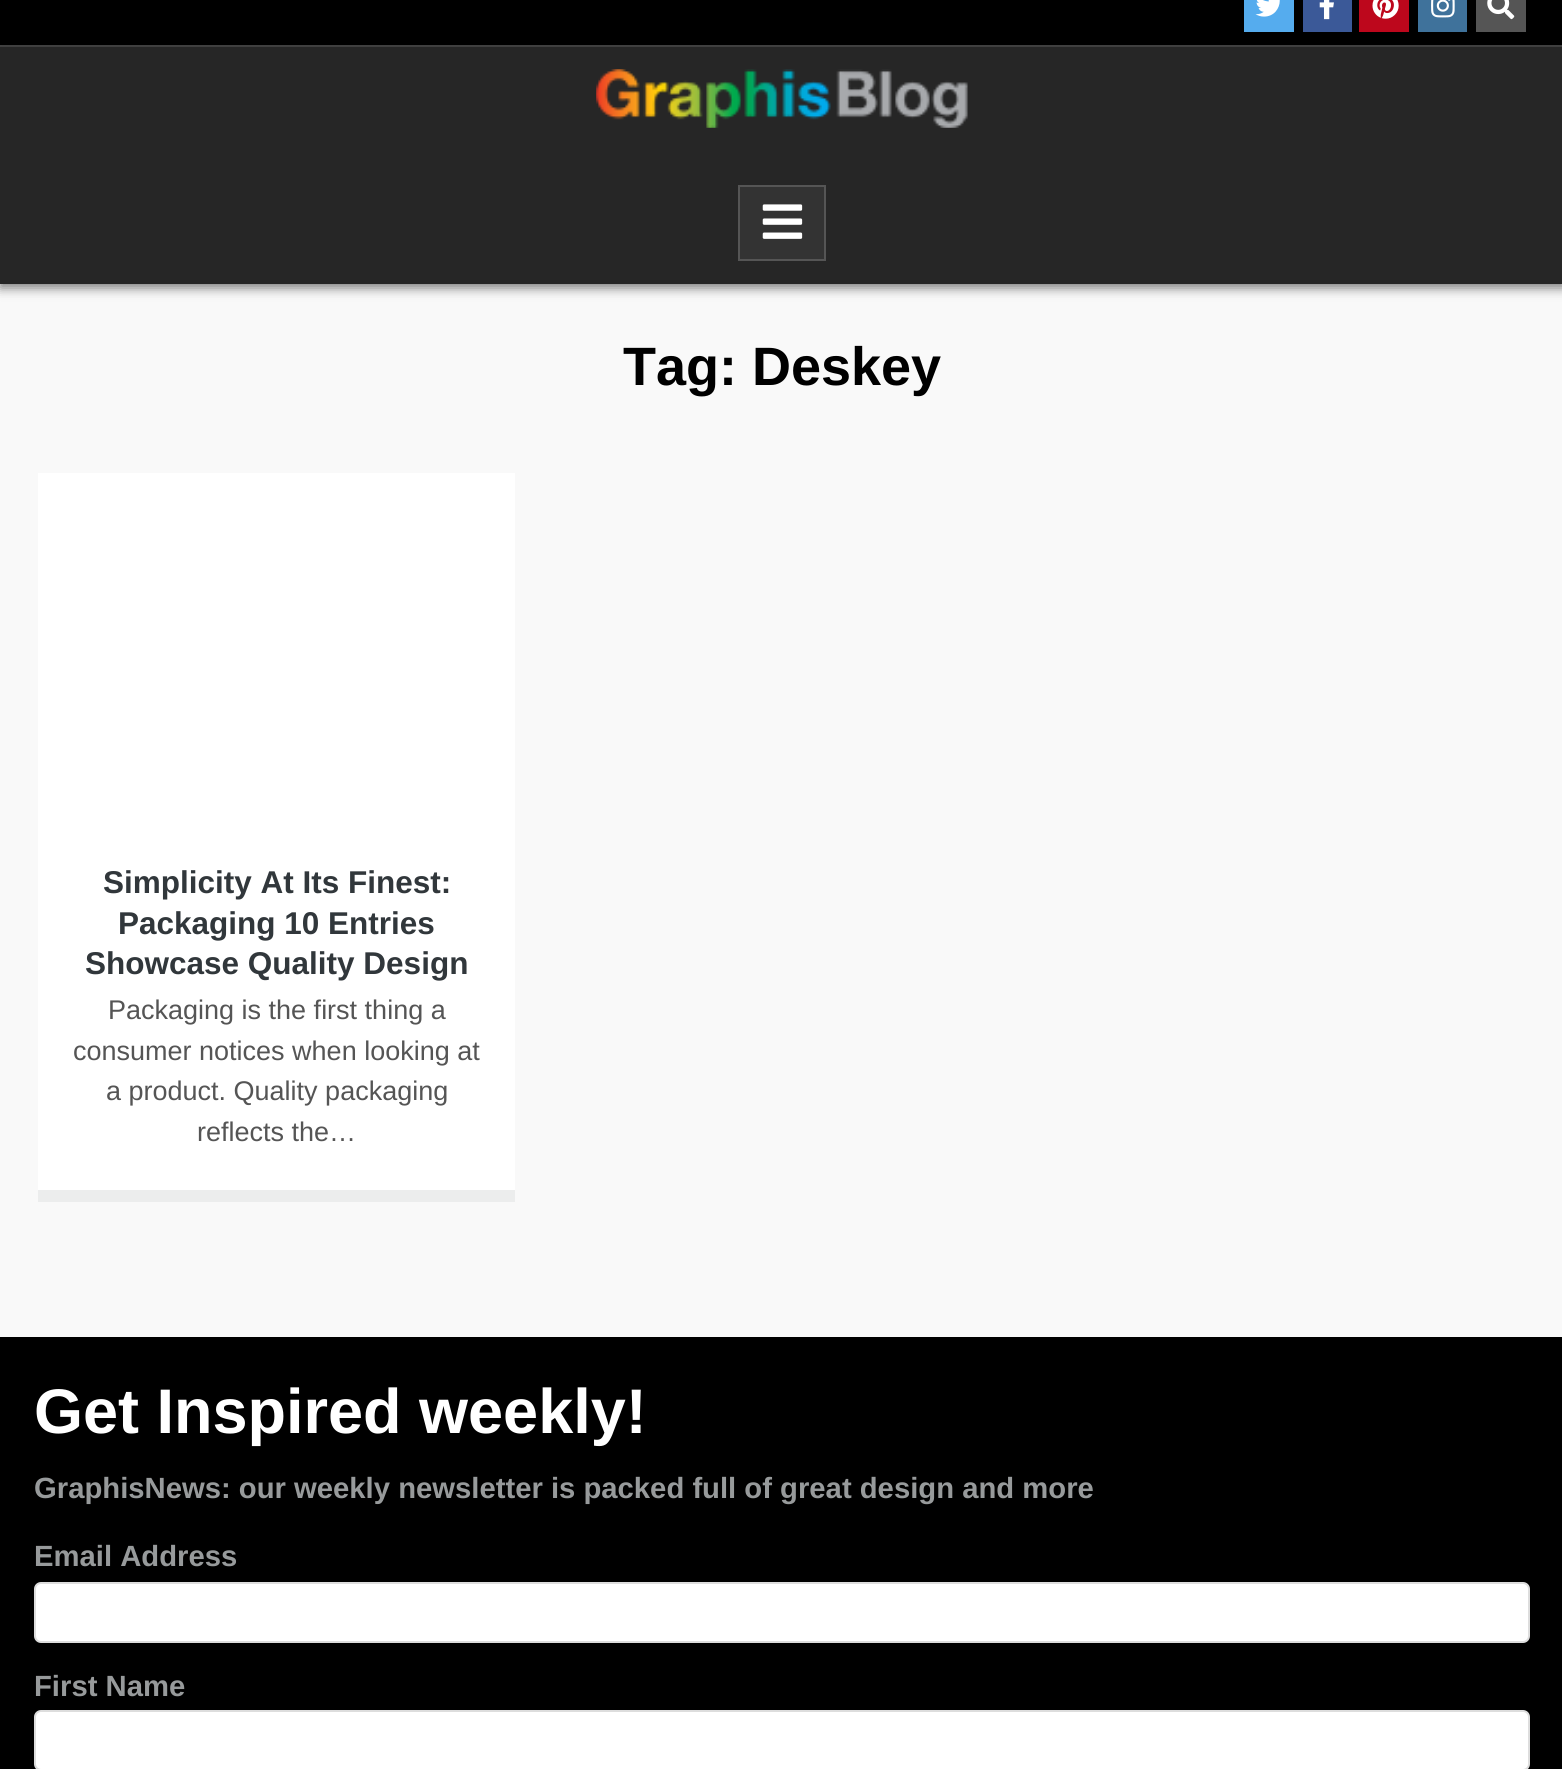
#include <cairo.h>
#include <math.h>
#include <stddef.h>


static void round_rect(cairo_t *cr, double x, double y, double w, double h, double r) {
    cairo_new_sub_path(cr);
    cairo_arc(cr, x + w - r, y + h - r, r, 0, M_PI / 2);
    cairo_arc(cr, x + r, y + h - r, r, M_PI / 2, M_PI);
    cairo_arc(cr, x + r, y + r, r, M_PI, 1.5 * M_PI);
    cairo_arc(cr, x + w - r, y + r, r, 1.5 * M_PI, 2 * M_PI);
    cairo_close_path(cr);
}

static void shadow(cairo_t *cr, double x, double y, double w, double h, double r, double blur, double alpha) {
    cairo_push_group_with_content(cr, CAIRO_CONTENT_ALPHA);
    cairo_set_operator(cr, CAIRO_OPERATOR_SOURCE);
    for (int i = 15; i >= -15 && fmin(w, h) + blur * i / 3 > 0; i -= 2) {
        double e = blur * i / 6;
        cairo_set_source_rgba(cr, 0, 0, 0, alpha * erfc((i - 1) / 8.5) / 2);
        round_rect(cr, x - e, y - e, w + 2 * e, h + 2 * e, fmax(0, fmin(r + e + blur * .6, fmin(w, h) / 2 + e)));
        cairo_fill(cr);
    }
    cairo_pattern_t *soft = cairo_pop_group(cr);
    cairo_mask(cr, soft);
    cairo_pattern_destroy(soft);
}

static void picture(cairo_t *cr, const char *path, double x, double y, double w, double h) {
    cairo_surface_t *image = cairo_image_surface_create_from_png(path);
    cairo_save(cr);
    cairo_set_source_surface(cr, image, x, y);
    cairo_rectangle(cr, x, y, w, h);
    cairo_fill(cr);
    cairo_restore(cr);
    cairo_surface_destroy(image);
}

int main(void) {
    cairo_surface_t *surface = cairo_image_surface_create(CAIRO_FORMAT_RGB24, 1562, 1769);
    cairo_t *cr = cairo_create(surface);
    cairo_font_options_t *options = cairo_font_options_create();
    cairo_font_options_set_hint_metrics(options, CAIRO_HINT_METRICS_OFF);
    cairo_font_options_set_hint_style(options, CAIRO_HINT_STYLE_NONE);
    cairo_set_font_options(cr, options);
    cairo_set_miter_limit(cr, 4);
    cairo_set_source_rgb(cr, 0.976, 0.976, 0.976);
    cairo_paint(cr);
    cairo_set_source_rgb(cr, 0, 0, 0);
    cairo_rectangle(cr, 0, 0, 1562, 45);
    cairo_fill(cr);
    cairo_set_source_rgb(cr, 0.267, 0.267, 0.267);
    cairo_rectangle(cr, 0, 45, 1562, 2);
    cairo_fill(cr);
    cairo_set_source_rgb(cr, 0.333, 0.675, 0.933);
    cairo_rectangle(cr, 1244, 0, 50, 32);
    cairo_fill(cr);
    picture(cr, "img1.png", 1255, 0, 25, 17);
    cairo_set_source_rgb(cr, 0.231, 0.349, 0.596);
    cairo_rectangle(cr, 1303, 0, 49, 32);
    cairo_fill(cr);
    picture(cr, "img2.png", 1319, 0, 15, 20);
    cairo_set_source_rgb(cr, 0.741, 0.031, 0.11);
    cairo_rectangle(cr, 1359, 0, 50, 32);
    cairo_fill(cr);
    picture(cr, "img3.png", 1372, 0, 27, 19);
    cairo_set_source_rgb(cr, 0.247, 0.447, 0.608);
    cairo_rectangle(cr, 1418, 0, 49, 32);
    cairo_fill(cr);
    picture(cr, "img4.png", 1431, 0, 24, 18);
    cairo_set_source_rgb(cr, 0.333, 0.333, 0.333);
    cairo_rectangle(cr, 1476, 0, 50, 32);
    cairo_fill(cr);
    picture(cr, "img5.png", 1487, 0, 28, 20);
    cairo_set_source_rgb(cr, 0, 0, 0);
    shadow(cr, 0, 52, 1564, 236, 0, 5.5, 0.5);
    cairo_set_source_rgb(cr, 0.149, 0.149, 0.149);
    cairo_rectangle(cr, 0, 47, 1562, 237);
    cairo_fill(cr);
    picture(cr, "img6.png", 596, 69, 372, 59);
    cairo_set_source_rgb(cr, 0.2, 0.2, 0.2);
    cairo_rectangle(cr, 739, 186, 86, 74);
    cairo_fill_preserve(cr);
    cairo_set_source_rgb(cr, 0.333, 0.333, 0.333);
    cairo_stroke(cr);
    picture(cr, "img7.png", 762, 204, 41, 35);
    cairo_select_font_face(cr, "Liberation Sans", CAIRO_FONT_SLANT_NORMAL, CAIRO_FONT_WEIGHT_BOLD);
    cairo_set_font_size(cr, 54);
    cairo_set_source_rgb(cr, 0, 0, 0);
    cairo_move_to(cr, 623, 385);
    cairo_show_text(cr, "Tag: Deskey");
    cairo_set_source_rgb(cr, 1, 1, 1);
    cairo_rectangle(cr, 38, 473, 477, 717);
    cairo_fill(cr);
    cairo_set_source_rgb(cr, 0.925, 0.929, 0.929);
    cairo_rectangle(cr, 38, 1190, 477, 12);
    cairo_fill(cr);
    cairo_set_font_size(cr, 31.5);
    cairo_set_source_rgb(cr, 0.192, 0.216, 0.231);
    cairo_move_to(cr, 103, 893);
    cairo_show_text(cr, "Simplicity At Its Finest:");
    cairo_move_to(cr, 118, 934);
    cairo_show_text(cr, "Packaging 10 Entries");
    cairo_move_to(cr, 85, 974);
    cairo_show_text(cr, "Showcase Quality Design");
    cairo_select_font_face(cr, "Liberation Sans", CAIRO_FONT_SLANT_NORMAL, CAIRO_FONT_WEIGHT_NORMAL);
    cairo_set_font_size(cr, 27);
    cairo_set_source_rgb(cr, 0.333, 0.333, 0.333);
    cairo_move_to(cr, 108, 1019);
    cairo_show_text(cr, "Packaging is the first thing a");
    cairo_move_to(cr, 73, 1060);
    cairo_show_text(cr, "consumer notices when looking at");
    cairo_move_to(cr, 106, 1100);
    cairo_show_text(cr, "a product. Quality packaging");
    cairo_move_to(cr, 197, 1141);
    cairo_show_text(cr, "reflects the…");
    cairo_set_source_rgb(cr, 0, 0, 0);
    cairo_rectangle(cr, 0, 1337, 1562, 432);
    cairo_fill(cr);
    cairo_select_font_face(cr, "Liberation Sans", CAIRO_FONT_SLANT_NORMAL, CAIRO_FONT_WEIGHT_BOLD);
    cairo_set_font_size(cr, 63);
    cairo_set_source_rgb(cr, 1, 1, 1);
    cairo_move_to(cr, 34, 1433);
    cairo_show_text(cr, "Get Inspired weekly!");
    cairo_set_font_size(cr, 29.25);
    cairo_set_source_rgb(cr, 0.592, 0.604, 0.608);
    cairo_move_to(cr, 34, 1498);
    cairo_show_text(cr, "GraphisNews: our weekly newsletter is packed full of great design and more");
    cairo_move_to(cr, 34, 1566);
    cairo_show_text(cr, "Email Address");
    cairo_set_source_rgb(cr, 1, 1, 1);
    round_rect(cr, 35, 1583, 1494, 59, 6);
    cairo_fill_preserve(cr);
    cairo_set_source_rgb(cr, 0.867, 0.867, 0.867);
    cairo_stroke(cr);
    cairo_set_source_rgb(cr, 0.592, 0.604, 0.608);
    cairo_move_to(cr, 34, 1696);
    cairo_show_text(cr, "First Name");
    cairo_set_source_rgb(cr, 1, 1, 1);
    round_rect(cr, 35, 1711, 1494, 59, 6);
    cairo_fill_preserve(cr);
    cairo_set_source_rgb(cr, 0.867, 0.867, 0.867);
    cairo_stroke(cr);
    cairo_surface_write_to_png(surface, "page.png");
    cairo_font_options_destroy(options);
    cairo_destroy(cr);
    cairo_surface_destroy(surface);
    return 0;
}
